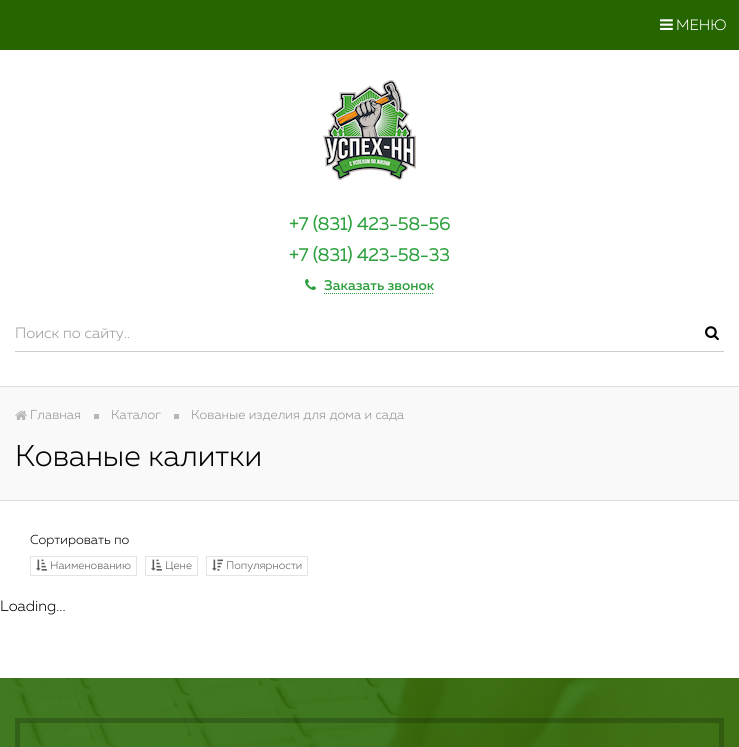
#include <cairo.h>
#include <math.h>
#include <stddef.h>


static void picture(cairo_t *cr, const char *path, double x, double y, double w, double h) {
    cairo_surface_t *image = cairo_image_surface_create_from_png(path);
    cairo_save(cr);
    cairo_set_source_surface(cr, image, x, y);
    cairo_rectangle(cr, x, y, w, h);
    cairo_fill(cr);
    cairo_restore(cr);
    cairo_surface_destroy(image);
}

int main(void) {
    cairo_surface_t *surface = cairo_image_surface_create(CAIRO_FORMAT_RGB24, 739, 747);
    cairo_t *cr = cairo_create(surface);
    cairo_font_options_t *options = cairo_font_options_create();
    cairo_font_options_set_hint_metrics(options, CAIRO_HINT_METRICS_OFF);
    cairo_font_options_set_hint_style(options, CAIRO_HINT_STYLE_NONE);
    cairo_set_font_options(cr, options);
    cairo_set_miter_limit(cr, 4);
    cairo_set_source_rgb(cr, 1, 1, 1);
    cairo_paint(cr);
    cairo_set_source_rgb(cr, 0.145, 0.4, 0);
    cairo_rectangle(cr, 0, 0, 739, 50);
    cairo_fill(cr);
    picture(cr, "img1.png", 660, 19, 13, 11);
    cairo_select_font_face(cr, "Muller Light", CAIRO_FONT_SLANT_NORMAL, CAIRO_FONT_WEIGHT_NORMAL);
    cairo_set_font_size(cr, 15);
    cairo_set_source_rgb(cr, 1, 1, 1);
    cairo_move_to(cr, 676, 30);
    cairo_show_text(cr, "МЕНЮ");
    picture(cr, "img2.png", 323, 80, 93, 100);
    cairo_select_font_face(cr, "Muller", CAIRO_FONT_SLANT_NORMAL, CAIRO_FONT_WEIGHT_BOLD);
    cairo_set_font_size(cr, 18);
    cairo_set_source_rgb(cr, 0.173, 0.627, 0.235);
    cairo_move_to(cr, 289, 230);
    cairo_show_text(cr, "+7 (831) 423-58-56");
    cairo_move_to(cr, 289, 261);
    cairo_show_text(cr, "+7 (831) 423-58-33");
    picture(cr, "img3.png", 305, 279, 11, 11);
    cairo_select_font_face(cr, "Muller Medium", CAIRO_FONT_SLANT_NORMAL, CAIRO_FONT_WEIGHT_NORMAL);
    cairo_set_font_size(cr, 14);
    cairo_move_to(cr, 324, 290);
    cairo_show_text(cr, "Заказать звонок");
    cairo_new_path(cr);
    cairo_move_to(cr, 324, 293.5);
    cairo_line_to(cr, 434, 293.5);
    cairo_set_line_width(cr, 1);
    cairo_set_dash(cr, (double[]){1, 1}, 2, 0);
    cairo_stroke(cr);
    cairo_set_source_rgb(cr, 0.8, 0.8, 0.8);
    cairo_rectangle(cr, 15, 351, 709, 1);
    cairo_fill(cr);
    cairo_save(cr);
    cairo_rectangle(cr, 15, 326, 670, 15);
    cairo_clip(cr);
    cairo_select_font_face(cr, "Muller Light", CAIRO_FONT_SLANT_NORMAL, CAIRO_FONT_WEIGHT_NORMAL);
    cairo_set_font_size(cr, 15);
    cairo_set_source_rgb(cr, 0.6, 0.6, 0.6);
    cairo_move_to(cr, 15, 338);
    cairo_show_text(cr, "Поиск по сайту..");
    cairo_restore(cr);
    picture(cr, "img4.png", 705, 326, 14, 15);
    cairo_set_source_rgb(cr, 0.973, 0.973, 0.973);
    cairo_rectangle(cr, 0, 387, 739, 113);
    cairo_fill(cr);
    cairo_set_source_rgb(cr, 0.867, 0.867, 0.867);
    cairo_rectangle(cr, 0, 386, 739, 1);
    cairo_fill(cr);
    cairo_rectangle(cr, 0, 500, 739, 1);
    cairo_fill(cr);
    picture(cr, "img5.png", 15, 410, 12, 10);
    cairo_select_font_face(cr, "Muller Light", CAIRO_FONT_SLANT_NORMAL, CAIRO_FONT_WEIGHT_NORMAL);
    cairo_set_font_size(cr, 13);
    cairo_set_source_rgb(cr, 0.576, 0.576, 0.576);
    cairo_move_to(cr, 30, 419);
    cairo_show_text(cr, "Главная");
    cairo_set_source_rgb(cr, 0.718, 0.718, 0.718);
    cairo_rectangle(cr, 94, 414, 5, 5);
    cairo_fill(cr);
    cairo_set_source_rgb(cr, 0.576, 0.576, 0.576);
    cairo_move_to(cr, 111, 419);
    cairo_show_text(cr, "Каталог");
    cairo_set_source_rgb(cr, 0.718, 0.718, 0.718);
    cairo_rectangle(cr, 174, 414, 5, 5);
    cairo_fill(cr);
    cairo_set_source_rgb(cr, 0.576, 0.576, 0.576);
    cairo_move_to(cr, 191, 419);
    cairo_show_text(cr, "Кованые изделия для дома и сада");
    cairo_set_font_size(cr, 30);
    cairo_set_source_rgb(cr, 0, 0, 0);
    cairo_move_to(cr, 15, 466);
    cairo_show_text(cr, "Кованые калитки");
    cairo_set_font_size(cr, 13);
    cairo_move_to(cr, 30, 544);
    cairo_show_text(cr, "Сортировать по");
    cairo_rectangle(cr, 30.5, 556.5, 106, 19);
    cairo_set_source_rgb(cr, 0.894, 0.894, 0.894);
    cairo_set_dash(cr, NULL, 0, 0);
    cairo_stroke(cr);
    picture(cr, "img6.png", 36, 559, 11, 12);
    cairo_set_font_size(cr, 11);
    cairo_set_source_rgb(cr, 0.357, 0.357, 0.357);
    cairo_move_to(cr, 50, 569);
    cairo_show_text(cr, "Наименованию");
    cairo_rectangle(cr, 145.5, 556.5, 52, 19);
    cairo_set_source_rgb(cr, 0.894, 0.894, 0.894);
    cairo_stroke(cr);
    picture(cr, "img6.png", 151, 559, 11, 12);
    cairo_set_source_rgb(cr, 0.357, 0.357, 0.357);
    cairo_move_to(cr, 165, 569);
    cairo_show_text(cr, "Цене");
    cairo_rectangle(cr, 206.5, 556.5, 101, 19);
    cairo_set_source_rgb(cr, 0.894, 0.894, 0.894);
    cairo_stroke(cr);
    picture(cr, "img7.png", 212, 559, 11, 12);
    cairo_set_source_rgb(cr, 0.357, 0.357, 0.357);
    cairo_move_to(cr, 226, 569);
    cairo_show_text(cr, "Популярности");
    cairo_set_font_size(cr, 15);
    cairo_set_source_rgb(cr, 0, 0, 0);
    cairo_move_to(cr, 0, 611);
    cairo_show_text(cr, "Loading...");
    picture(cr, "img8.png", 0, 678, 739, 69);
    cairo_rectangle(cr, 17.5, 720.5, 704, 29);
    cairo_set_source_rgba(cr, 0, 0, 0, 0.2);
    cairo_set_line_width(cr, 5);
    cairo_stroke(cr);
    cairo_surface_write_to_png(surface, "page.png");
    cairo_font_options_destroy(options);
    cairo_destroy(cr);
    cairo_surface_destroy(surface);
    return 0;
}
